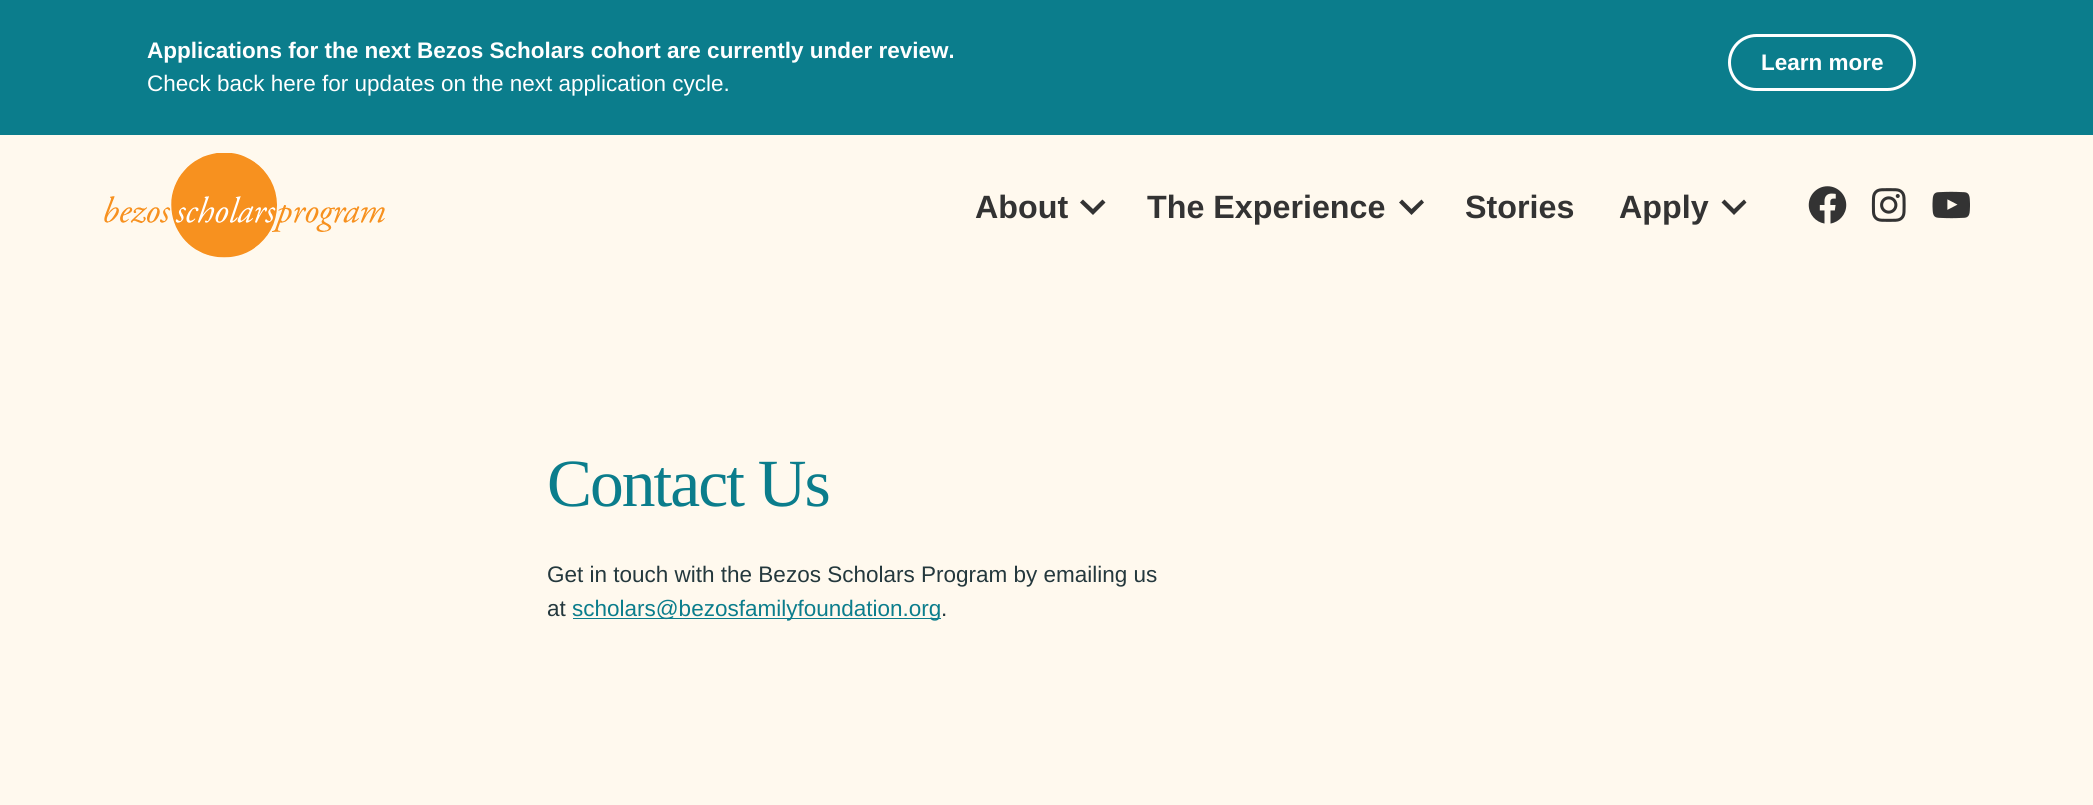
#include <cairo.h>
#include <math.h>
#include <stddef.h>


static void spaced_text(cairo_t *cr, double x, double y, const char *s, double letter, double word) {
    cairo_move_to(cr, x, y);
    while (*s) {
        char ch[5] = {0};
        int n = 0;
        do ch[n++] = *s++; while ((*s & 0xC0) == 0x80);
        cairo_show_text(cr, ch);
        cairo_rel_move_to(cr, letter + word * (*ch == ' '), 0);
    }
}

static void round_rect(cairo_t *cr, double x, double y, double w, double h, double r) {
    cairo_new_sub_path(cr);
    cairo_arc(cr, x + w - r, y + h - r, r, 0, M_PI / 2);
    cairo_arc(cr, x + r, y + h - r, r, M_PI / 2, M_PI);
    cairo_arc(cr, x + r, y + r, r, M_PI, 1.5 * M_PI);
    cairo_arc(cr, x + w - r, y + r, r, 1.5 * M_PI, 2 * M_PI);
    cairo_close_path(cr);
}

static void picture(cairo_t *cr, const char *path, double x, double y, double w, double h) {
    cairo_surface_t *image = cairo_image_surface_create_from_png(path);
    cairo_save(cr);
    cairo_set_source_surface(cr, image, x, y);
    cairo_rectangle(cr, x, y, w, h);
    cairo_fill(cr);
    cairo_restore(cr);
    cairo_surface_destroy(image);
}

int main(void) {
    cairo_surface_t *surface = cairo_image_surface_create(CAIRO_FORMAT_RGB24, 2093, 805);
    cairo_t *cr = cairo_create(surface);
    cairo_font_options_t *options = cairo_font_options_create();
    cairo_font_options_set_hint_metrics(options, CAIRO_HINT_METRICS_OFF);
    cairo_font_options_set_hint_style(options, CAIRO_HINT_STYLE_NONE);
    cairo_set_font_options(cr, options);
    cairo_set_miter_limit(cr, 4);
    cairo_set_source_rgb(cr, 1, 0.976, 0.933);
    cairo_paint(cr);
    cairo_set_source_rgb(cr, 0.043, 0.49, 0.549);
    cairo_rectangle(cr, 0, 0, 2093, 135);
    cairo_fill(cr);
    cairo_select_font_face(cr, "Liberation Sans", CAIRO_FONT_SLANT_NORMAL, CAIRO_FONT_WEIGHT_BOLD);
    cairo_set_font_size(cr, 22.5);
    cairo_set_source_rgb(cr, 1, 1, 1);
    cairo_move_to(cr, 147, 58);
    cairo_show_text(cr, "Applications for the next Bezos Scholars cohort are currently under review.");
    cairo_select_font_face(cr, "Liberation Sans", CAIRO_FONT_SLANT_NORMAL, CAIRO_FONT_WEIGHT_NORMAL);
    cairo_move_to(cr, 147, 91);
    cairo_show_text(cr, "Check back here for updates on the next application cycle.");
    round_rect(cr, 1729.5, 35.5, 185, 54, 27);
    cairo_set_line_width(cr, 3);
    cairo_stroke(cr);
    cairo_select_font_face(cr, "Liberation Sans", CAIRO_FONT_SLANT_NORMAL, CAIRO_FONT_WEIGHT_BOLD);
    cairo_move_to(cr, 1761, 70);
    cairo_show_text(cr, "Learn more");
    picture(cr, "img1.png", 104, 153, 281, 105);
    cairo_set_font_size(cr, 32.25);
    cairo_set_source_rgb(cr, 0.2, 0.2, 0.2);
    cairo_move_to(cr, 975, 218);
    cairo_show_text(cr, "About");
    cairo_new_path(cr);
    cairo_move_to(cr, 1093, 215);
    cairo_line_to(cr, 1080, 202.5);
    cairo_line_to(cr, 1083, 199.5);
    cairo_line_to(cr, 1093, 209);
    cairo_line_to(cr, 1102.5, 199.5);
    cairo_line_to(cr, 1105.5, 202.5);
    cairo_close_path(cr);
    cairo_fill(cr);
    cairo_move_to(cr, 1147, 218);
    cairo_show_text(cr, "The Experience");
    cairo_new_path(cr);
    cairo_move_to(cr, 1411.5, 215);
    cairo_line_to(cr, 1399, 202.5);
    cairo_line_to(cr, 1402, 199.5);
    cairo_line_to(cr, 1411.5, 209);
    cairo_line_to(cr, 1421.5, 199.5);
    cairo_line_to(cr, 1424, 202.5);
    cairo_close_path(cr);
    cairo_fill(cr);
    cairo_move_to(cr, 1465, 218);
    cairo_show_text(cr, "Stories");
    cairo_move_to(cr, 1619, 218);
    cairo_show_text(cr, "Apply");
    cairo_new_path(cr);
    cairo_move_to(cr, 1734, 215);
    cairo_line_to(cr, 1721.5, 202.5);
    cairo_line_to(cr, 1724.5, 199.5);
    cairo_line_to(cr, 1734, 209);
    cairo_line_to(cr, 1744, 199.5);
    cairo_line_to(cr, 1746.5, 202.5);
    cairo_close_path(cr);
    cairo_fill(cr);
    picture(cr, "img2.png", 1808, 186, 39, 38);
    picture(cr, "img3.png", 1871, 188, 35, 34);
    picture(cr, "img4.png", 1932, 191, 38, 28);
    cairo_select_font_face(cr, "Liberation Serif", CAIRO_FONT_SLANT_NORMAL, CAIRO_FONT_WEIGHT_NORMAL);
    cairo_set_font_size(cr, 67.5);
    cairo_set_source_rgb(cr, 0.043, 0.49, 0.549);
    spaced_text(cr, 547, 506, "Contact Us", -2, 0);
    cairo_select_font_face(cr, "Liberation Sans", CAIRO_FONT_SLANT_NORMAL, CAIRO_FONT_WEIGHT_NORMAL);
    cairo_set_font_size(cr, 22.5);
    cairo_set_source_rgb(cr, 0.141, 0.22, 0.239);
    cairo_move_to(cr, 547, 582);
    cairo_show_text(cr, "Get in touch with the Bezos Scholars Program by emailing us");
    cairo_move_to(cr, 547, 616);
    cairo_show_text(cr, "at");
    cairo_set_source_rgb(cr, 0.043, 0.49, 0.549);
    cairo_rectangle(cr, 573, 618, 368, 1);
    cairo_fill(cr);
    cairo_move_to(cr, 572, 616);
    cairo_show_text(cr, "scholars@bezosfamilyfoundation.org");
    cairo_set_source_rgb(cr, 0.141, 0.22, 0.239);
    cairo_move_to(cr, 941, 616);
    cairo_show_text(cr, ".");
    cairo_surface_write_to_png(surface, "page.png");
    cairo_font_options_destroy(options);
    cairo_destroy(cr);
    cairo_surface_destroy(surface);
    return 0;
}
